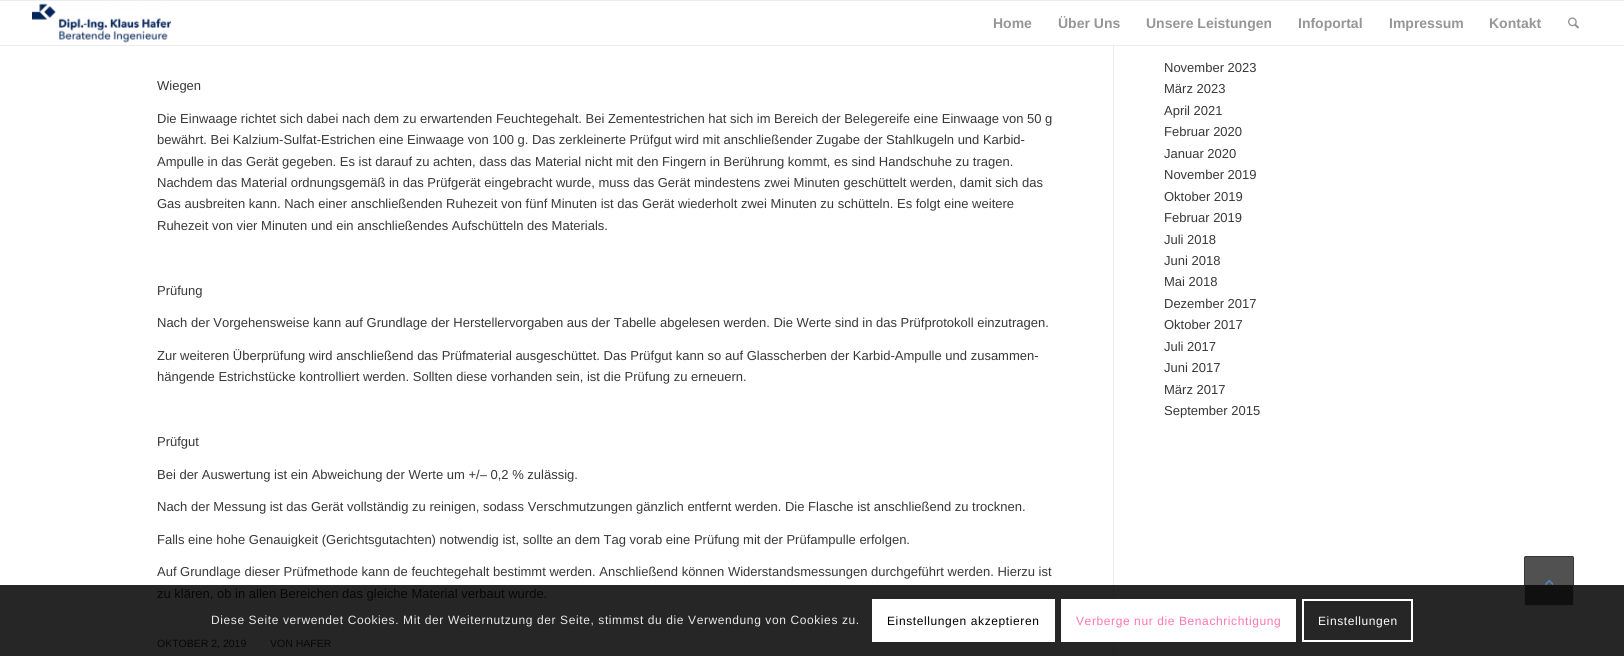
#include <cairo.h>
#include <math.h>
#include <stddef.h>


static void spaced_text(cairo_t *cr, double x, double y, const char *s, double letter, double word) {
    cairo_move_to(cr, x, y);
    while (*s) {
        char ch[5] = {0};
        int n = 0;
        do ch[n++] = *s++; while ((*s & 0xC0) == 0x80);
        cairo_show_text(cr, ch);
        cairo_rel_move_to(cr, letter + word * (*ch == ' '), 0);
    }
}

static void round_rect(cairo_t *cr, double x, double y, double w, double h, double r) {
    cairo_new_sub_path(cr);
    cairo_arc(cr, x + w - r, y + h - r, r, 0, M_PI / 2);
    cairo_arc(cr, x + r, y + h - r, r, M_PI / 2, M_PI);
    cairo_arc(cr, x + r, y + r, r, M_PI, 1.5 * M_PI);
    cairo_arc(cr, x + w - r, y + r, r, 1.5 * M_PI, 2 * M_PI);
    cairo_close_path(cr);
}

static void picture(cairo_t *cr, const char *path, double x, double y, double w, double h) {
    cairo_surface_t *image = cairo_image_surface_create_from_png(path);
    cairo_save(cr);
    cairo_set_source_surface(cr, image, x, y);
    cairo_rectangle(cr, x, y, w, h);
    cairo_fill(cr);
    cairo_restore(cr);
    cairo_surface_destroy(image);
}

int main(void) {
    cairo_surface_t *surface = cairo_image_surface_create(CAIRO_FORMAT_RGB24, 1624, 656);
    cairo_t *cr = cairo_create(surface);
    cairo_font_options_t *options = cairo_font_options_create();
    cairo_font_options_set_hint_metrics(options, CAIRO_HINT_METRICS_OFF);
    cairo_font_options_set_hint_style(options, CAIRO_HINT_STYLE_NONE);
    cairo_set_font_options(cr, options);
    cairo_set_miter_limit(cr, 4);
    cairo_set_source_rgb(cr, 1, 1, 1);
    cairo_paint(cr);
    cairo_set_source_rgb(cr, 0.149, 0.149, 0.149);
    cairo_rectangle(cr, 0, 585, 1624, 71);
    cairo_fill(cr);
    cairo_set_source_rgb(cr, 0.922, 0.922, 0.922);
    cairo_rectangle(cr, 1113, 0, 1, 585);
    cairo_fill(cr);
    cairo_set_source_rgba(cr, 1, 1, 1, 0.95);
    cairo_rectangle(cr, 1113, 1, 1, 44);
    cairo_fill(cr);
    cairo_set_source_rgb(cr, 0.922, 0.922, 0.922);
    cairo_rectangle(cr, 0, 0, 1624, 1);
    cairo_fill(cr);
    cairo_rectangle(cr, 0, 45, 1624, 1);
    cairo_fill(cr);
    picture(cr, "img1.png", 32, 3, 139, 40);
    cairo_select_font_face(cr, "Liberation Sans", CAIRO_FONT_SLANT_NORMAL, CAIRO_FONT_WEIGHT_BOLD);
    cairo_set_font_size(cr, 14);
    cairo_set_source_rgb(cr, 0.588, 0.588, 0.588);
    cairo_move_to(cr, 993, 28);
    cairo_show_text(cr, "Home");
    cairo_move_to(cr, 1058, 28);
    cairo_show_text(cr, "Über Uns");
    cairo_move_to(cr, 1146, 28);
    cairo_show_text(cr, "Unsere Leistungen");
    cairo_move_to(cr, 1298, 28);
    cairo_show_text(cr, "Infoportal");
    cairo_move_to(cr, 1389, 28);
    cairo_show_text(cr, "Impressum");
    cairo_move_to(cr, 1489, 28);
    cairo_show_text(cr, "Kontakt");
    picture(cr, "img2.png", 1568, 17, 11, 12);
    cairo_set_source_rgb(cr, 0.137, 0.137, 0.137);
    cairo_rectangle(cr, 1113, 585, 1, 71);
    cairo_fill(cr);
    cairo_select_font_face(cr, "Liberation Sans", CAIRO_FONT_SLANT_NORMAL, CAIRO_FONT_WEIGHT_NORMAL);
    cairo_set_font_size(cr, 13);
    cairo_set_source_rgb(cr, 0.22, 0.22, 0.22);
    cairo_move_to(cr, 157, 90);
    cairo_show_text(cr, "Wiegen");
    cairo_move_to(cr, 157, 123);
    cairo_show_text(cr, "Die Einwaage richtet sich dabei nach dem zu erwartenden Feuchtegehalt. Bei Zementestrichen hat sich im Bereich der Belegereife eine Einwaage von 50 g");
    cairo_move_to(cr, 157, 144);
    cairo_show_text(cr, "bewährt. Bei Kalzium-Sulfat-Estrichen eine Einwaage von 100 g. Das zerkleinerte Prüfgut wird mit anschließender Zugabe der Stahlkugeln und Karbid-");
    cairo_move_to(cr, 157, 166);
    cairo_show_text(cr, "Ampulle in das Gerät gegeben. Es ist darauf zu achten, dass das Material nicht mit den Fingern in Berührung kommt, es sind Handschuhe zu tragen.");
    cairo_move_to(cr, 157, 187);
    cairo_show_text(cr, "Nachdem das Material ordnungsgemäß in das Prüfgerät eingebracht wurde, muss das Gerät mindestens zwei Minuten geschüttelt werden, damit sich das");
    cairo_move_to(cr, 157, 208);
    cairo_show_text(cr, "Gas ausbreiten kann. Nach einer anschließenden Ruhezeit von fünf Minuten ist das Gerät wiederholt zwei Minuten zu schütteln. Es folgt eine weitere");
    cairo_move_to(cr, 157, 230);
    cairo_show_text(cr, "Ruhezeit von vier Minuten und ein anschließendes Aufschütteln des Materials.");
    cairo_move_to(cr, 157, 295);
    cairo_show_text(cr, "Prüfung");
    cairo_move_to(cr, 157, 327);
    cairo_show_text(cr, "Nach der Vorgehensweise kann auf Grundlage der Herstellervorgaben aus der Tabelle abgelesen werden. Die Werte sind in das Prüfprotokoll einzutragen.");
    cairo_move_to(cr, 157, 360);
    cairo_show_text(cr, "Zur weiteren Überprüfung wird anschließend das Prüfmaterial ausgeschüttet. Das Prüfgut kann so auf Glasscherben der Karbid-Ampulle und zusammen-");
    cairo_move_to(cr, 157, 381);
    cairo_show_text(cr, "hängende Estrichstücke kontrolliert werden. Sollten diese vorhanden sein, ist die Prüfung zu erneuern.");
    cairo_move_to(cr, 157, 446);
    cairo_show_text(cr, "Prüfgut");
    cairo_move_to(cr, 157, 479);
    cairo_show_text(cr, "Bei der Auswertung ist ein Abweichung der Werte um +/– 0,2 % zulässig.");
    cairo_move_to(cr, 157, 511);
    cairo_show_text(cr, "Nach der Messung ist das Gerät vollständig zu reinigen, sodass Verschmutzungen gänzlich entfernt werden. Die Flasche ist anschließend zu trocknen.");
    cairo_move_to(cr, 157, 544);
    cairo_show_text(cr, "Falls eine hohe Genauigkeit (Gerichtsgutachten) notwendig ist, sollte an dem Tag vorab eine Prüfung mit der Prüfampulle erfolgen.");
    cairo_move_to(cr, 157, 576);
    cairo_show_text(cr, "Auf Grundlage dieser Prüfmethode kann de feuchtegehalt bestimmt werden. Anschließend können Widerstandsmessungen durchgeführt werden. Hierzu ist");
    cairo_set_source_rgb(cr, 0.031, 0.031, 0.031);
    cairo_move_to(cr, 157, 598);
    cairo_show_text(cr, "zu klären, ob in allen Bereichen das gleiche Material verbaut wurde.");
    cairo_set_font_size(cr, 10.5);
    cairo_move_to(cr, 157, 647);
    cairo_show_text(cr, "OKTOBER 2, 2019");
    cairo_move_to(cr, 270, 647);
    cairo_show_text(cr, "VON HAFER");
    cairo_set_font_size(cr, 13);
    cairo_set_source_rgb(cr, 0.22, 0.22, 0.22);
    cairo_move_to(cr, 1164, 72);
    cairo_show_text(cr, "November 2023");
    cairo_move_to(cr, 1164, 93);
    cairo_show_text(cr, "März 2023");
    cairo_move_to(cr, 1164, 115);
    cairo_show_text(cr, "April 2021");
    cairo_move_to(cr, 1164, 136);
    cairo_show_text(cr, "Februar 2020");
    cairo_move_to(cr, 1164, 158);
    cairo_show_text(cr, "Januar 2020");
    cairo_move_to(cr, 1164, 179);
    cairo_show_text(cr, "November 2019");
    cairo_move_to(cr, 1164, 201);
    cairo_show_text(cr, "Oktober 2019");
    cairo_move_to(cr, 1164, 222);
    cairo_show_text(cr, "Februar 2019");
    cairo_move_to(cr, 1164, 244);
    cairo_show_text(cr, "Juli 2018");
    cairo_move_to(cr, 1164, 265);
    cairo_show_text(cr, "Juni 2018");
    cairo_move_to(cr, 1164, 286);
    cairo_show_text(cr, "Mai 2018");
    cairo_move_to(cr, 1164, 308);
    cairo_show_text(cr, "Dezember 2017");
    cairo_move_to(cr, 1164, 329);
    cairo_show_text(cr, "Oktober 2017");
    cairo_move_to(cr, 1164, 351);
    cairo_show_text(cr, "Juli 2017");
    cairo_move_to(cr, 1164, 372);
    cairo_show_text(cr, "Juni 2017");
    cairo_move_to(cr, 1164, 394);
    cairo_show_text(cr, "März 2017");
    cairo_move_to(cr, 1164, 415);
    cairo_show_text(cr, "September 2015");
    cairo_set_source_rgba(cr, 0.031, 0.031, 0.031, 0.7);
    round_rect(cr, 1524, 556, 50, 50, 2);
    cairo_fill(cr);
    round_rect(cr, 1524.5, 556.5, 49, 49, 1.5);
    cairo_set_source_rgba(cr, 0.157, 0.169, 0.18, 0.7);
    cairo_set_line_width(cr, 1);
    cairo_stroke(cr);
    picture(cr, "img3.png", 1545, 580, 8, 5);
    cairo_set_font_size(cr, 12);
    cairo_set_source_rgb(cr, 0.914, 0.914, 0.914);
    spaced_text(cr, 211, 624, "Diese Seite verwendet Cookies. Mit der Weiternutzung der Seite, stimmst du die Verwendung von Cookies zu.", 0.6, 0);
    cairo_set_source_rgb(cr, 1, 1, 1);
    cairo_rectangle(cr, 872, 599, 183, 43);
    cairo_fill(cr);
    cairo_set_source_rgb(cr, 0, 0, 0);
    spaced_text(cr, 887, 625, "Einstellungen akzeptieren", 0.6, 0);
    cairo_set_source_rgb(cr, 1, 1, 1);
    cairo_rectangle(cr, 1061, 599, 235, 43);
    cairo_fill(cr);
    cairo_set_source_rgb(cr, 1, 0.459, 0.71);
    spaced_text(cr, 1076, 625, "Verberge nur die Benachrichtigung", 0.6, 0);
    cairo_rectangle(cr, 1303, 600, 109, 41);
    cairo_set_source_rgb(cr, 1, 1, 1);
    cairo_set_line_width(cr, 2);
    cairo_stroke(cr);
    spaced_text(cr, 1318, 625, "Einstellungen", 0.6, 0);
    cairo_surface_write_to_png(surface, "page.png");
    cairo_font_options_destroy(options);
    cairo_destroy(cr);
    cairo_surface_destroy(surface);
    return 0;
}
